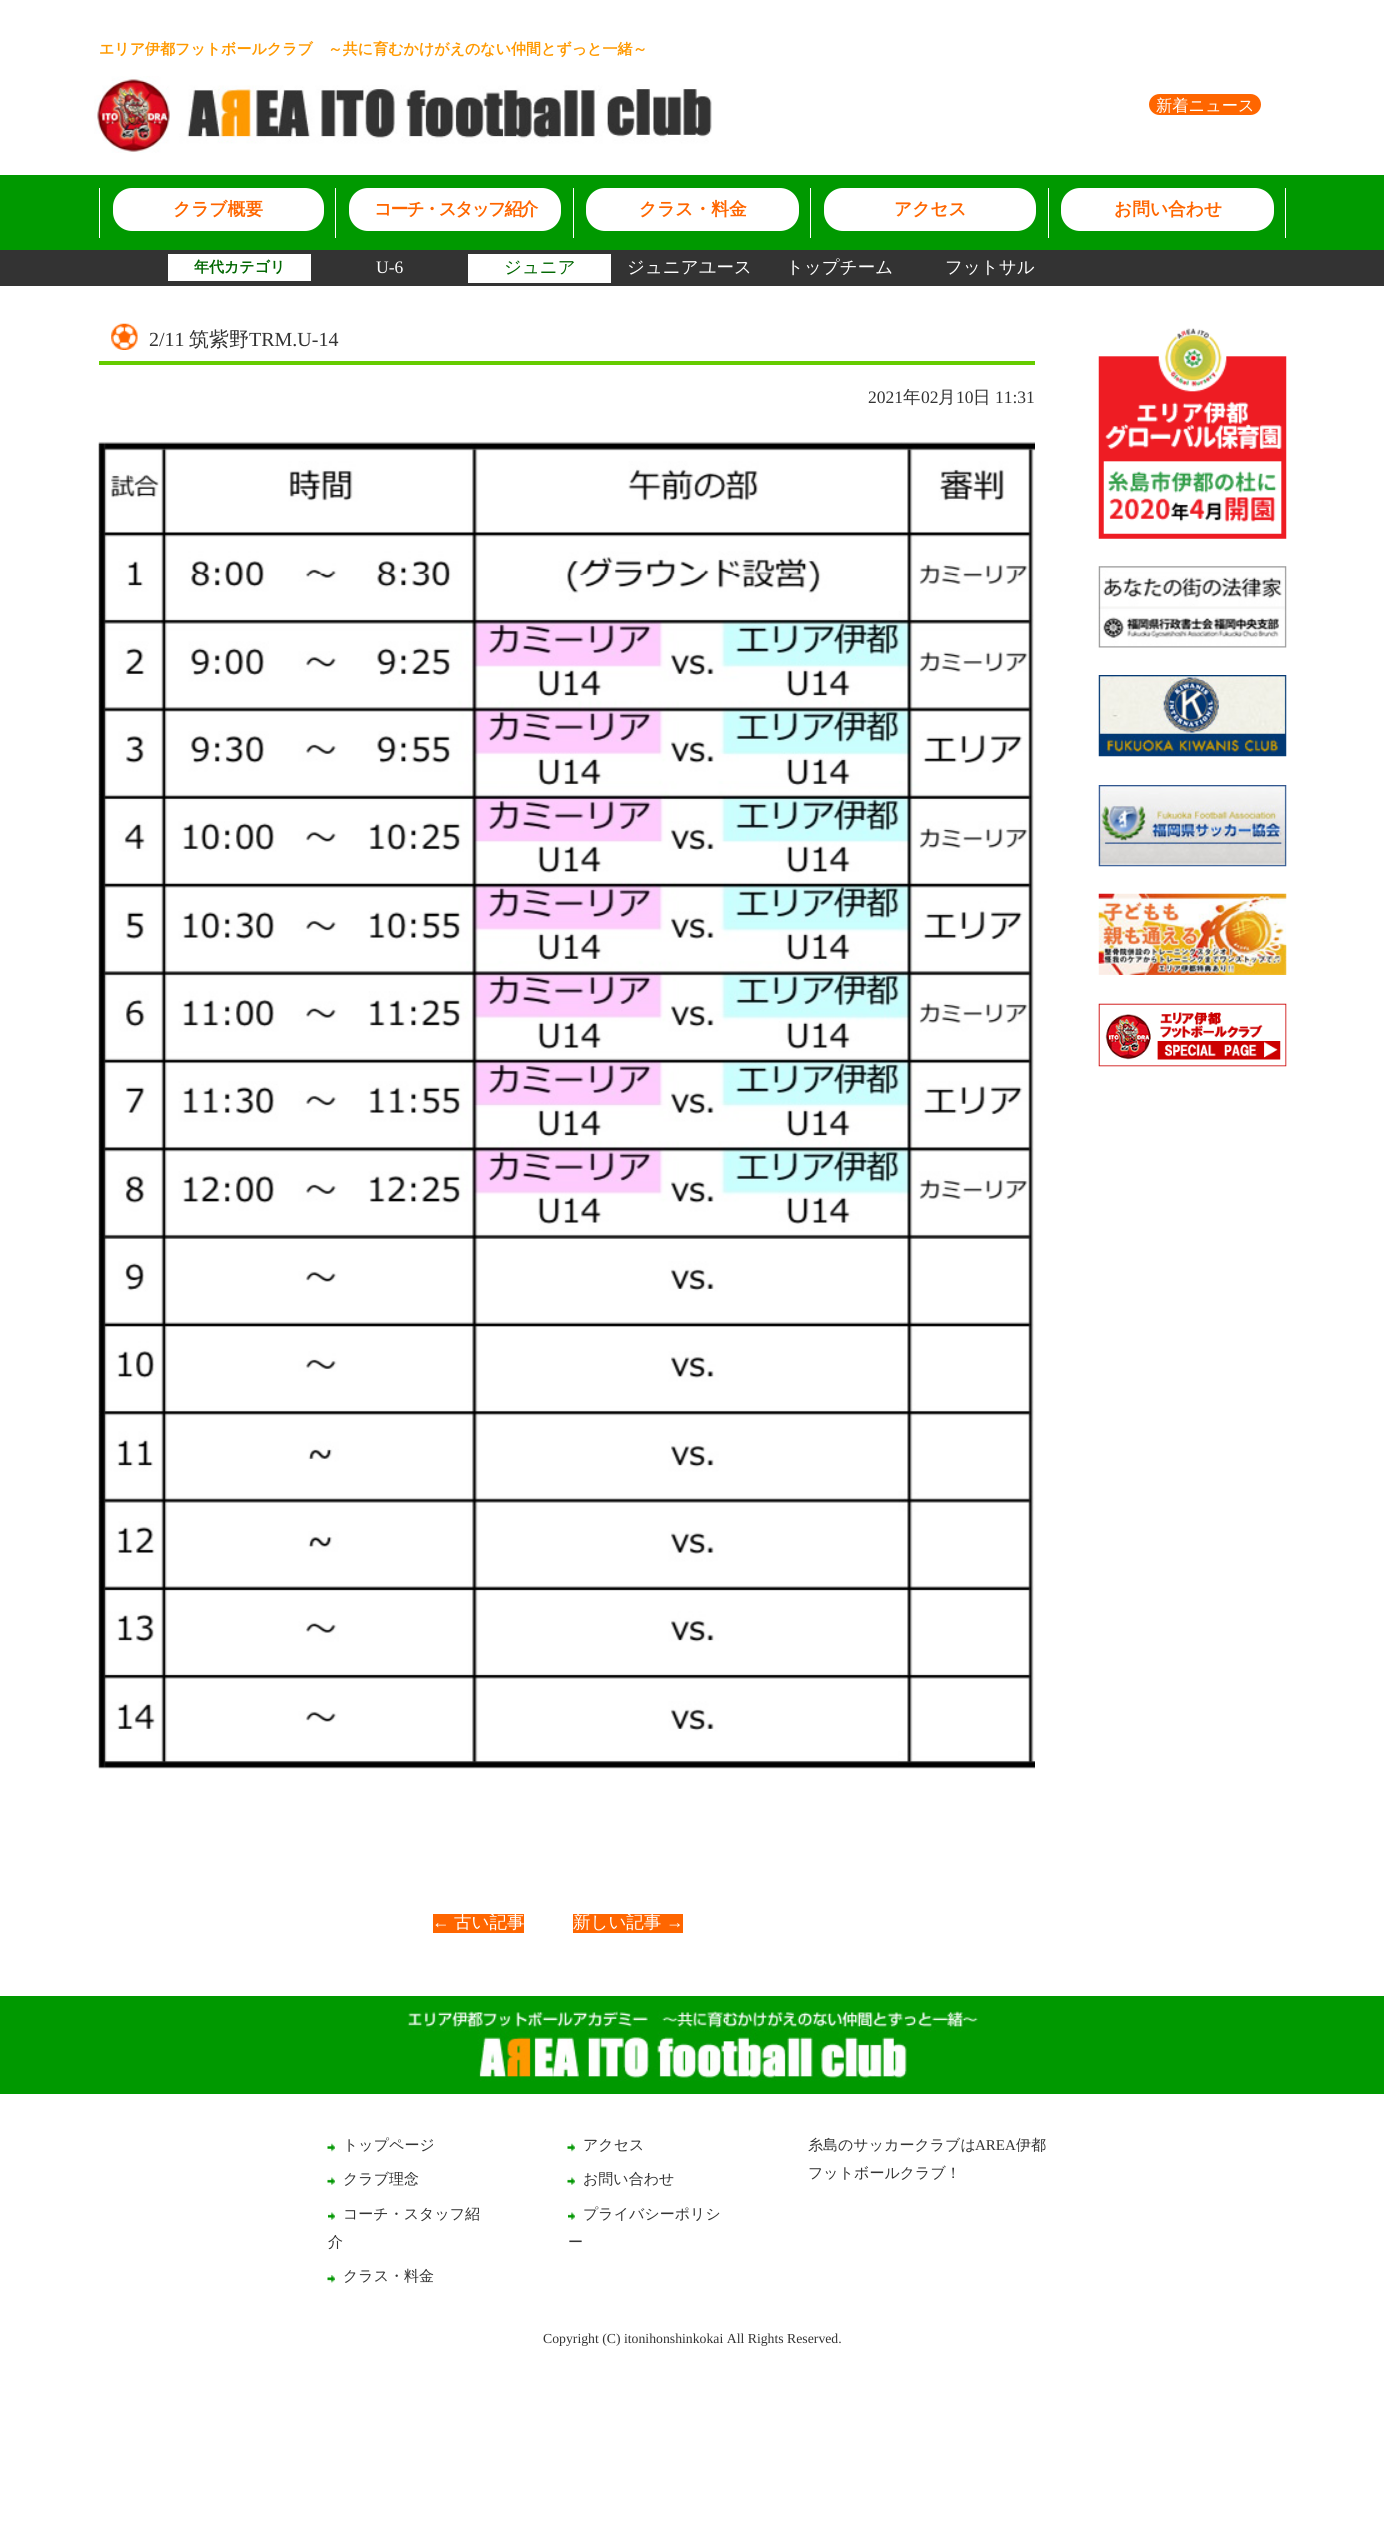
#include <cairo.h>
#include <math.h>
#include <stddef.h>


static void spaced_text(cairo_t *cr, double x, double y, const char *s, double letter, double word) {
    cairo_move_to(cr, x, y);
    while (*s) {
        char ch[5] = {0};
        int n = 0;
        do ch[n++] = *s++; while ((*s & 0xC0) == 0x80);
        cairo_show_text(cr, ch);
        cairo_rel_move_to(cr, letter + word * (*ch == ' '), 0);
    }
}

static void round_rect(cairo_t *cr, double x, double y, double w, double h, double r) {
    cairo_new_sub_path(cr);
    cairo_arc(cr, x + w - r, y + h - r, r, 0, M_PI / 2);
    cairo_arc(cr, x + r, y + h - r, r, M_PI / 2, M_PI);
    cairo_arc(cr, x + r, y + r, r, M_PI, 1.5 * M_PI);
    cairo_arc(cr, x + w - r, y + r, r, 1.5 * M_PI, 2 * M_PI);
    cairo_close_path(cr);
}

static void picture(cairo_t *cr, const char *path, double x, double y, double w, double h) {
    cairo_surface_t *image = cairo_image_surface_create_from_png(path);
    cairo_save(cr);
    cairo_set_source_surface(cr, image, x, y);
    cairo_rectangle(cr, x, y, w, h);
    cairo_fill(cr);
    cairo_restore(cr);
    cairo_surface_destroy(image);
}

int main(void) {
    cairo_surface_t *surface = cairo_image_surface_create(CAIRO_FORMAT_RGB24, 1384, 2545);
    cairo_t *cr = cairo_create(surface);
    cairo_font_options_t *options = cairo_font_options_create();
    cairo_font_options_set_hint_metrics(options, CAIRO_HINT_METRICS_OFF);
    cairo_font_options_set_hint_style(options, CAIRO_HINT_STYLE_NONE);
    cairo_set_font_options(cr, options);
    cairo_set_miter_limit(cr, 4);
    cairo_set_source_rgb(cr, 1, 1, 1);
    cairo_paint(cr);
    cairo_select_font_face(cr, "WenQuanYi Zen Hei", CAIRO_FONT_SLANT_NORMAL, CAIRO_FONT_WEIGHT_BOLD);
    cairo_set_font_size(cr, 15);
    cairo_set_source_rgb(cr, 1, 0.6, 0);
    cairo_move_to(cr, 99, 54);
    cairo_show_text(cr, "エリア伊都フットボールクラブ　～共に育むかけがえのない仲間とずっと一緒～");
    picture(cr, "img1.png", 94, 76, 618, 77);
    cairo_set_source_rgb(cr, 1, 0.4, 0);
    round_rect(cr, 1149, 94, 112, 21, 10.5);
    cairo_fill(cr);
    cairo_select_font_face(cr, "WenQuanYi Zen Hei Medium", CAIRO_FONT_SLANT_NORMAL, CAIRO_FONT_WEIGHT_NORMAL);
    cairo_set_font_size(cr, 16.25);
    cairo_set_source_rgb(cr, 1, 1, 1);
    cairo_move_to(cr, 1156, 111);
    cairo_show_text(cr, "新着ニュース");
    cairo_set_source_rgb(cr, 0, 0.6, 0);
    cairo_rectangle(cr, 0, 175, 1384, 75);
    cairo_fill(cr);
    cairo_set_source_rgb(cr, 1, 1, 1);
    cairo_rectangle(cr, 335, 188, 1, 50);
    cairo_fill(cr);
    cairo_rectangle(cr, 99, 188, 1, 50);
    cairo_fill(cr);
    round_rect(cr, 113, 188, 211, 43, 19);
    cairo_fill(cr);
    cairo_select_font_face(cr, "WenQuanYi Zen Hei", CAIRO_FONT_SLANT_NORMAL, CAIRO_FONT_WEIGHT_BOLD);
    cairo_set_font_size(cr, 17.75);
    cairo_set_source_rgb(cr, 1, 0.4, 0);
    cairo_move_to(cr, 173, 215);
    cairo_show_text(cr, "クラブ概要");
    cairo_set_source_rgb(cr, 1, 1, 1);
    cairo_rectangle(cr, 573, 188, 1, 50);
    cairo_fill(cr);
    round_rect(cr, 349, 188, 212, 43, 19);
    cairo_fill(cr);
    cairo_set_source_rgb(cr, 1, 0.4, 0);
    spaced_text(cr, 374, 215, "コーチ・スタッフ紹介", -1.75, 0);
    cairo_set_source_rgb(cr, 1, 1, 1);
    cairo_rectangle(cr, 810, 188, 1, 50);
    cairo_fill(cr);
    round_rect(cr, 586, 188, 213, 43, 19);
    cairo_fill(cr);
    cairo_set_source_rgb(cr, 1, 0.4, 0);
    cairo_move_to(cr, 639, 215);
    cairo_show_text(cr, "クラス・料金");
    cairo_set_source_rgb(cr, 1, 1, 1);
    cairo_rectangle(cr, 1048, 188, 1, 50);
    cairo_fill(cr);
    round_rect(cr, 824, 188, 212, 43, 19);
    cairo_fill(cr);
    cairo_set_source_rgb(cr, 1, 0.4, 0);
    cairo_move_to(cr, 894, 215);
    cairo_show_text(cr, "アクセス");
    cairo_set_source_rgb(cr, 1, 1, 1);
    cairo_rectangle(cr, 1285, 188, 1, 50);
    cairo_fill(cr);
    round_rect(cr, 1061, 188, 213, 43, 19);
    cairo_fill(cr);
    cairo_set_source_rgb(cr, 1, 0.4, 0);
    cairo_move_to(cr, 1114, 215);
    cairo_show_text(cr, "お問い合わせ");
    cairo_set_source_rgb(cr, 0.2, 0.2, 0.2);
    cairo_rectangle(cr, 0, 250, 1384, 36);
    cairo_fill(cr);
    cairo_set_source_rgb(cr, 1, 1, 1);
    cairo_rectangle(cr, 168, 254, 143, 27);
    cairo_fill(cr);
    cairo_set_font_size(cr, 15);
    cairo_set_source_rgb(cr, 0, 0.4, 0);
    cairo_move_to(cr, 194, 272);
    cairo_show_text(cr, "年代カテゴリ");
    cairo_select_font_face(cr, "Liberation Serif", CAIRO_FONT_SLANT_NORMAL, CAIRO_FONT_WEIGHT_NORMAL);
    cairo_set_font_size(cr, 17.5);
    cairo_set_source_rgb(cr, 1, 1, 1);
    cairo_move_to(cr, 376, 273);
    cairo_show_text(cr, "U-6");
    cairo_rectangle(cr, 468, 254, 143, 29);
    cairo_fill(cr);
    cairo_select_font_face(cr, "WenQuanYi Zen Hei Medium", CAIRO_FONT_SLANT_NORMAL, CAIRO_FONT_WEIGHT_NORMAL);
    cairo_set_source_rgb(cr, 0, 0.4, 0);
    cairo_move_to(cr, 504, 273);
    cairo_show_text(cr, "ジュニア");
    cairo_set_source_rgb(cr, 1, 1, 1);
    cairo_move_to(cr, 627, 273);
    cairo_show_text(cr, "ジュニアユース");
    cairo_move_to(cr, 786, 273);
    cairo_show_text(cr, "トップチーム");
    cairo_move_to(cr, 945, 273);
    cairo_show_text(cr, "フットサル");
    picture(cr, "img2.png", 111, 323, 27, 27);
    cairo_set_source_rgb(cr, 0.4, 0.8, 0);
    cairo_rectangle(cr, 99, 361, 936, 4);
    cairo_fill(cr);
    cairo_select_font_face(cr, "Liberation Serif", CAIRO_FONT_SLANT_NORMAL, CAIRO_FONT_WEIGHT_NORMAL);
    cairo_set_font_size(cr, 20);
    cairo_set_source_rgb(cr, 0.2, 0.2, 0.2);
    cairo_move_to(cr, 149, 346);
    cairo_show_text(cr, "2/11");
    cairo_select_font_face(cr, "WenQuanYi Zen Hei Medium", CAIRO_FONT_SLANT_NORMAL, CAIRO_FONT_WEIGHT_NORMAL);
    cairo_move_to(cr, 189, 346);
    cairo_show_text(cr, "筑紫野");
    cairo_select_font_face(cr, "Liberation Serif", CAIRO_FONT_SLANT_NORMAL, CAIRO_FONT_WEIGHT_NORMAL);
    cairo_move_to(cr, 249, 346);
    cairo_show_text(cr, "TRM.U-14");
    cairo_set_font_size(cr, 17.5);
    cairo_move_to(cr, 868, 403);
    cairo_show_text(cr, "2021");
    cairo_select_font_face(cr, "WenQuanYi Zen Hei Medium", CAIRO_FONT_SLANT_NORMAL, CAIRO_FONT_WEIGHT_NORMAL);
    cairo_move_to(cr, 903, 403);
    cairo_show_text(cr, "年");
    cairo_select_font_face(cr, "Liberation Serif", CAIRO_FONT_SLANT_NORMAL, CAIRO_FONT_WEIGHT_NORMAL);
    cairo_move_to(cr, 921, 403);
    cairo_show_text(cr, "02");
    cairo_select_font_face(cr, "WenQuanYi Zen Hei Medium", CAIRO_FONT_SLANT_NORMAL, CAIRO_FONT_WEIGHT_NORMAL);
    cairo_move_to(cr, 938, 403);
    cairo_show_text(cr, "月");
    cairo_select_font_face(cr, "Liberation Serif", CAIRO_FONT_SLANT_NORMAL, CAIRO_FONT_WEIGHT_NORMAL);
    cairo_move_to(cr, 956, 403);
    cairo_show_text(cr, "10");
    cairo_select_font_face(cr, "WenQuanYi Zen Hei Medium", CAIRO_FONT_SLANT_NORMAL, CAIRO_FONT_WEIGHT_NORMAL);
    cairo_move_to(cr, 973, 403);
    cairo_show_text(cr, "日");
    cairo_select_font_face(cr, "Liberation Serif", CAIRO_FONT_SLANT_NORMAL, CAIRO_FONT_WEIGHT_NORMAL);
    cairo_move_to(cr, 995, 403);
    cairo_show_text(cr, "11:31");
    picture(cr, "img3.png", 98, 441, 937, 1328);
    cairo_set_source_rgb(cr, 1, 0.4, 0);
    cairo_rectangle(cr, 433, 1914, 91, 19);
    cairo_fill(cr);
    cairo_set_source_rgb(cr, 1, 1, 1);
    cairo_move_to(cr, 432, 1928);
    cairo_show_text(cr, "←");
    cairo_select_font_face(cr, "WenQuanYi Zen Hei Medium", CAIRO_FONT_SLANT_NORMAL, CAIRO_FONT_WEIGHT_NORMAL);
    cairo_move_to(cr, 454, 1928);
    cairo_show_text(cr, "古い記事");
    cairo_set_source_rgb(cr, 1, 0.4, 0);
    cairo_rectangle(cr, 573, 1914, 110, 19);
    cairo_fill(cr);
    cairo_set_source_rgb(cr, 1, 1, 1);
    cairo_move_to(cr, 573, 1928);
    cairo_show_text(cr, "新しい記事");
    cairo_select_font_face(cr, "Liberation Serif", CAIRO_FONT_SLANT_NORMAL, CAIRO_FONT_WEIGHT_NORMAL);
    cairo_move_to(cr, 666, 1928);
    cairo_show_text(cr, "→");
    picture(cr, "img4.png", 1098, 328, 189, 211);
    picture(cr, "img5.png", 1098, 566, 189, 82);
    picture(cr, "img6.png", 1098, 675, 189, 82);
    picture(cr, "img7.png", 1098, 785, 189, 82);
    picture(cr, "img8.png", 1098, 893, 189, 82);
    picture(cr, "img9.png", 1098, 1003, 189, 64);
    cairo_set_source_rgb(cr, 0, 0.6, 0);
    cairo_rectangle(cr, 0, 1996, 1384, 98);
    cairo_fill(cr);
    picture(cr, "img10.png", 407, 2011, 571, 70);
    picture(cr, "img11.png", 327, 2143, 8, 9);
    cairo_select_font_face(cr, "WenQuanYi Zen Hei Medium", CAIRO_FONT_SLANT_NORMAL, CAIRO_FONT_WEIGHT_NORMAL);
    cairo_set_font_size(cr, 15);
    cairo_set_source_rgb(cr, 0.2, 0.2, 0.2);
    cairo_move_to(cr, 343, 2150);
    cairo_show_text(cr, "トップページ");
    picture(cr, "img12.png", 327, 2177, 8, 8);
    cairo_move_to(cr, 343, 2184);
    cairo_show_text(cr, "クラブ理念");
    picture(cr, "img13.png", 328, 2212, 7, 8);
    cairo_move_to(cr, 343, 2219);
    cairo_show_text(cr, "コーチ・スタッフ紹");
    cairo_move_to(cr, 328, 2247);
    cairo_show_text(cr, "介");
    picture(cr, "img14.png", 327, 2275, 8, 8);
    cairo_move_to(cr, 343, 2281);
    cairo_show_text(cr, "クラス・料金");
    picture(cr, "img15.png", 567, 2143, 8, 9);
    cairo_move_to(cr, 583, 2150);
    cairo_show_text(cr, "アクセス");
    picture(cr, "img16.png", 567, 2177, 8, 8);
    cairo_move_to(cr, 583, 2184);
    cairo_show_text(cr, "お問い合わせ");
    picture(cr, "img17.png", 568, 2212, 7, 8);
    cairo_move_to(cr, 583, 2219);
    cairo_show_text(cr, "プライバシーポリシ");
    cairo_move_to(cr, 568, 2247);
    cairo_show_text(cr, "ー");
    cairo_move_to(cr, 808, 2150);
    cairo_show_text(cr, "糸島のサッカークラブは");
    cairo_select_font_face(cr, "Liberation Serif", CAIRO_FONT_SLANT_NORMAL, CAIRO_FONT_WEIGHT_NORMAL);
    cairo_move_to(cr, 975, 2150);
    cairo_show_text(cr, "AREA");
    cairo_select_font_face(cr, "WenQuanYi Zen Hei Medium", CAIRO_FONT_SLANT_NORMAL, CAIRO_FONT_WEIGHT_NORMAL);
    cairo_move_to(cr, 1016, 2150);
    cairo_show_text(cr, "伊都");
    cairo_move_to(cr, 808, 2178);
    cairo_show_text(cr, "フットボールクラブ！");
    cairo_select_font_face(cr, "Liberation Serif", CAIRO_FONT_SLANT_NORMAL, CAIRO_FONT_WEIGHT_NORMAL);
    cairo_set_font_size(cr, 13.75);
    cairo_move_to(cr, 543, 2343);
    cairo_show_text(cr, "Copyright (C) itonihonshinkokai All Rights Reserved.");
    cairo_surface_write_to_png(surface, "page.png");
    cairo_font_options_destroy(options);
    cairo_destroy(cr);
    cairo_surface_destroy(surface);
    return 0;
}
